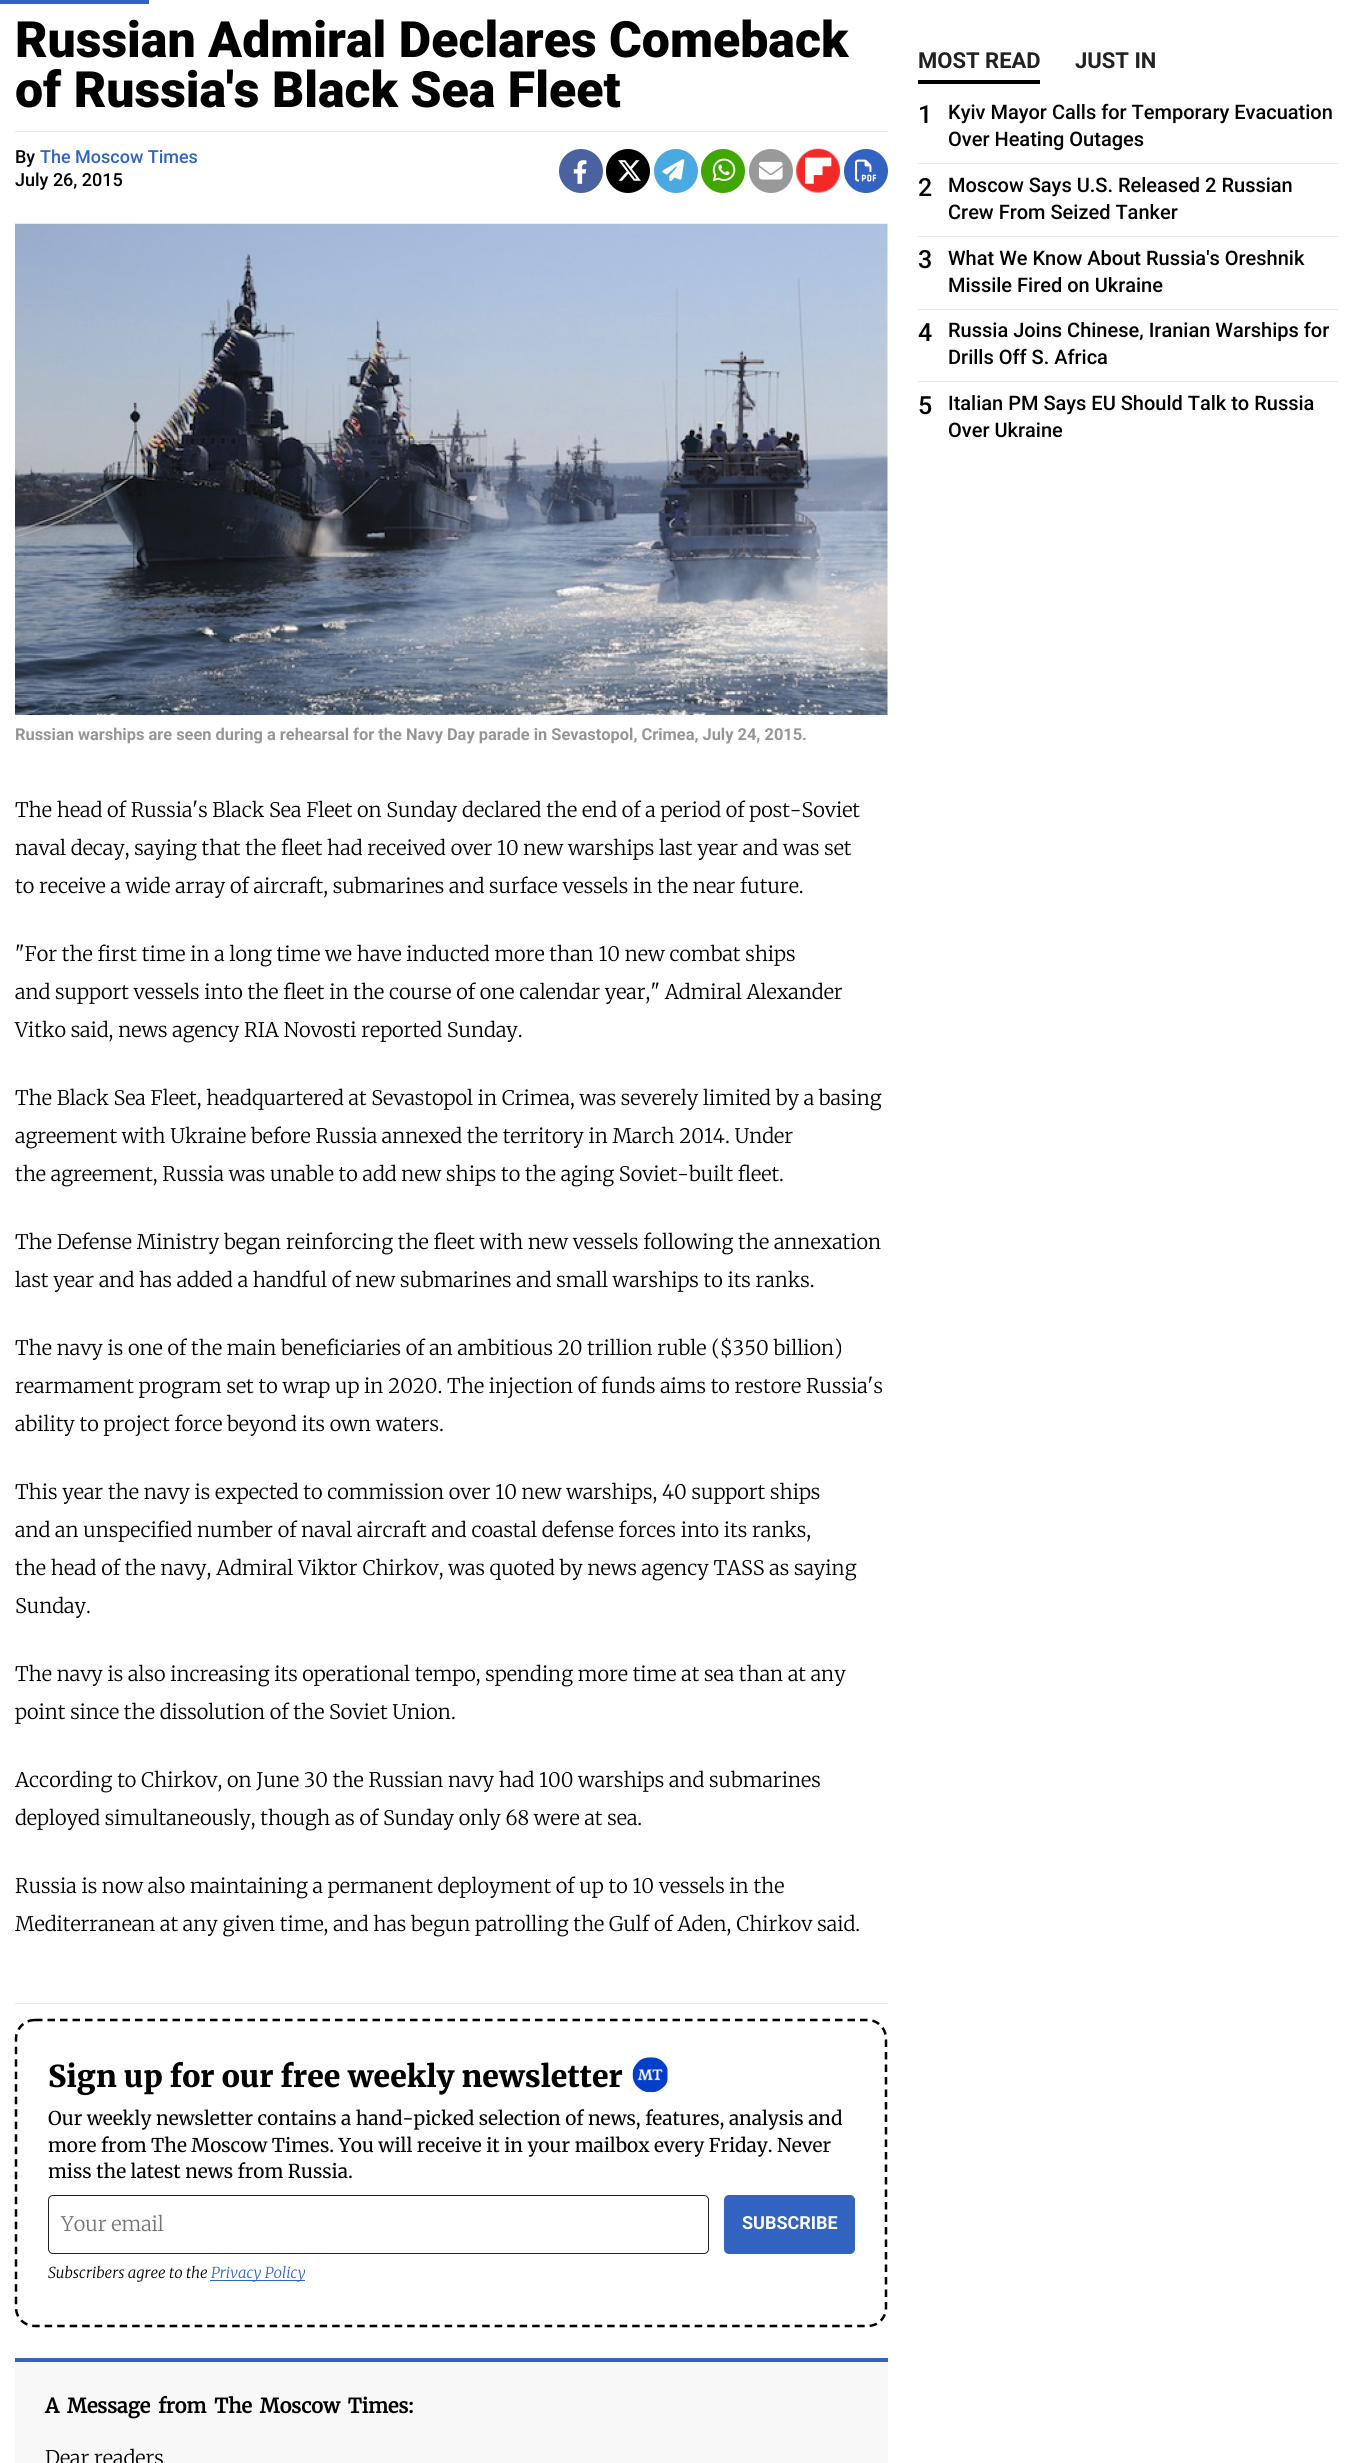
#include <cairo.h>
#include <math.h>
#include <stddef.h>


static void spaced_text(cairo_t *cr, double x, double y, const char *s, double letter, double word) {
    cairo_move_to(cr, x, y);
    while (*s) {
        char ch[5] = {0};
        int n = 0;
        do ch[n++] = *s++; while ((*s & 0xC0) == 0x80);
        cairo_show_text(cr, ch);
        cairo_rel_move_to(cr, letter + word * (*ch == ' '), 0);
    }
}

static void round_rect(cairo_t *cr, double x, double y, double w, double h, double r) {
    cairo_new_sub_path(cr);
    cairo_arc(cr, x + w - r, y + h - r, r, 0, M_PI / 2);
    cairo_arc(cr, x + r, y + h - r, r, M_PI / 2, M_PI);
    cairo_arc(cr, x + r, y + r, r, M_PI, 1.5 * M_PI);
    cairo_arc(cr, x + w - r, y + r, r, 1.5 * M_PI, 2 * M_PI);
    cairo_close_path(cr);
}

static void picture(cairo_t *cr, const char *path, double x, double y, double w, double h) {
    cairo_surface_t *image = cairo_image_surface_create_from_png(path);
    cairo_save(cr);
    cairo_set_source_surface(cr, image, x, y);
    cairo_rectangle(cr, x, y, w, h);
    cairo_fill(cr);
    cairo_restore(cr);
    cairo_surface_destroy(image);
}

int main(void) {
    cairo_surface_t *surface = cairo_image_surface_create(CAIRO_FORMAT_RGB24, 1352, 2463);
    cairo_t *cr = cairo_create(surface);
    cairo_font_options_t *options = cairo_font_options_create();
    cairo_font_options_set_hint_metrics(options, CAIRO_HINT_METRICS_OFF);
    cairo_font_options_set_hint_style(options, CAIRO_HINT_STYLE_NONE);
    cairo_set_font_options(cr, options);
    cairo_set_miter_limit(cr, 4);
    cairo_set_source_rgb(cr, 1, 1, 1);
    cairo_paint(cr);
    cairo_set_source_rgb(cr, 0.196, 0.388, 0.753);
    cairo_rectangle(cr, 0, 0, 149, 4);
    cairo_fill(cr);
    cairo_select_font_face(cr, "Roboto Black", CAIRO_FONT_SLANT_NORMAL, CAIRO_FONT_WEIGHT_NORMAL);
    cairo_set_font_size(cr, 50);
    cairo_set_source_rgb(cr, 0, 0, 0);
    cairo_move_to(cr, 15, 57);
    cairo_show_text(cr, "Russian Admiral Declares Comeback");
    cairo_move_to(cr, 15, 107);
    cairo_show_text(cr, "of Russia's Black Sea Fleet");
    cairo_set_source_rgb(cr, 0.91, 0.91, 0.91);
    cairo_rectangle(cr, 15, 131, 873, 1);
    cairo_fill(cr);
    cairo_select_font_face(cr, "Roboto Medium", CAIRO_FONT_SLANT_NORMAL, CAIRO_FONT_WEIGHT_NORMAL);
    cairo_set_font_size(cr, 18);
    cairo_set_source_rgb(cr, 0, 0, 0);
    cairo_move_to(cr, 15, 163);
    cairo_show_text(cr, "By");
    cairo_set_source_rgb(cr, 0.196, 0.388, 0.753);
    cairo_move_to(cr, 40, 163);
    cairo_show_text(cr, "The Moscow Times");
    cairo_set_source_rgb(cr, 0, 0, 0);
    cairo_move_to(cr, 15, 186);
    cairo_show_text(cr, "July 26, 2015");
    cairo_set_source_rgb(cr, 0.29, 0.384, 0.627);
    cairo_new_path(cr);
    cairo_arc(cr, 581, 171, 22, 0, 2 * M_PI);
    cairo_fill(cr);
    picture(cr, "img1.png", 573, 160, 14, 24);
    cairo_set_source_rgb(cr, 0, 0, 0);
    cairo_arc(cr, 628, 171, 22, 0, 2 * M_PI);
    cairo_fill(cr);
    picture(cr, "img2.png", 618, 160, 23, 21);
    cairo_set_source_rgb(cr, 0.294, 0.663, 0.886);
    cairo_arc(cr, 676, 171, 22, 0, 2 * M_PI);
    cairo_fill(cr);
    picture(cr, "img3.png", 662, 159, 23, 22);
    cairo_set_source_rgb(cr, 0.251, 0.651, 0);
    cairo_arc(cr, 723, 171, 22, 0, 2 * M_PI);
    cairo_fill(cr);
    picture(cr, "img4.png", 712, 158, 24, 24);
    cairo_set_source_rgb(cr, 0.6, 0.6, 0.6);
    cairo_arc(cr, 771, 171, 22, 0, 2 * M_PI);
    cairo_fill(cr);
    picture(cr, "img5.png", 759, 161, 24, 19);
    cairo_set_source_rgb(cr, 0.91, 0.91, 0.91);
    cairo_arc(cr, 818, 171, 22, 0, 2 * M_PI);
    cairo_fill(cr);
    picture(cr, "img6.png", 796, 148, 44, 45);
    cairo_set_source_rgb(cr, 0.196, 0.388, 0.753);
    cairo_arc(cr, 866, 171, 22, 0, 2 * M_PI);
    cairo_fill(cr);
    picture(cr, "img7.png", 855, 159, 22, 23);
    picture(cr, "img8.png", 15, 223, 873, 492);
    cairo_select_font_face(cr, "Roboto", CAIRO_FONT_SLANT_NORMAL, CAIRO_FONT_WEIGHT_BOLD);
    cairo_set_font_size(cr, 16.4);
    cairo_set_source_rgb(cr, 0.584, 0.584, 0.584);
    cairo_move_to(cr, 15, 740);
    cairo_show_text(cr, "Russian warships are seen during a rehearsal for the Navy Day parade in Sevastopol, Crimea, July 24, 2015.");
    cairo_select_font_face(cr, "Merriweather Light", CAIRO_FONT_SLANT_NORMAL, CAIRO_FONT_WEIGHT_NORMAL);
    cairo_set_font_size(cr, 20);
    cairo_set_source_rgb(cr, 0, 0, 0);
    cairo_move_to(cr, 15, 817);
    cairo_show_text(cr, "The head of Russia's Black Sea Fleet on Sunday declared the end of a period of post-Soviet");
    cairo_move_to(cr, 15, 855);
    cairo_show_text(cr, "naval decay, saying that the fleet had received over 10 new warships last year and was set");
    cairo_move_to(cr, 15, 893);
    cairo_show_text(cr, "to receive a wide array of aircraft, submarines and surface vessels in the near future.");
    cairo_move_to(cr, 15, 961);
    cairo_show_text(cr, "\"For the first time in a long time we have inducted more than 10 new combat ships");
    cairo_move_to(cr, 15, 999);
    cairo_show_text(cr, "and support vessels into the fleet in the course of one calendar year,\" Admiral Alexander");
    cairo_move_to(cr, 15, 1037);
    cairo_show_text(cr, "Vitko said, news agency RIA Novosti reported Sunday.");
    cairo_move_to(cr, 15, 1105);
    cairo_show_text(cr, "The Black Sea Fleet, headquartered at Sevastopol in Crimea, was severely limited by a basing");
    cairo_move_to(cr, 15, 1143);
    cairo_show_text(cr, "agreement with Ukraine before Russia annexed the territory in March 2014. Under");
    cairo_move_to(cr, 15, 1181);
    cairo_show_text(cr, "the agreement, Russia was unable to add new ships to the aging Soviet-built fleet.");
    cairo_move_to(cr, 15, 1249);
    cairo_show_text(cr, "The Defense Ministry began reinforcing the fleet with new vessels following the annexation");
    cairo_move_to(cr, 15, 1287);
    cairo_show_text(cr, "last year and has added a handful of new submarines and small warships to its ranks.");
    cairo_move_to(cr, 15, 1355);
    cairo_show_text(cr, "The navy is one of the main beneficiaries of an ambitious 20 trillion ruble ($350 billion)");
    cairo_move_to(cr, 15, 1393);
    cairo_show_text(cr, "rearmament program set to wrap up in 2020. The injection of funds aims to restore Russia's");
    cairo_move_to(cr, 15, 1431);
    cairo_show_text(cr, "ability to project force beyond its own waters.");
    cairo_move_to(cr, 15, 1499);
    cairo_show_text(cr, "This year the navy is expected to commission over 10 new warships, 40 support ships");
    cairo_move_to(cr, 15, 1537);
    cairo_show_text(cr, "and an unspecified number of naval aircraft and coastal defense forces into its ranks,");
    cairo_move_to(cr, 15, 1575);
    cairo_show_text(cr, "the head of the navy, Admiral Viktor Chirkov, was quoted by news agency TASS as saying");
    cairo_move_to(cr, 15, 1613);
    cairo_show_text(cr, "Sunday.");
    cairo_move_to(cr, 15, 1681);
    cairo_show_text(cr, "The navy is also increasing its operational tempo, spending more time at sea than at any");
    cairo_move_to(cr, 15, 1719);
    cairo_show_text(cr, "point since the dissolution of the Soviet Union.");
    cairo_move_to(cr, 15, 1787);
    cairo_show_text(cr, "According to Chirkov, on June 30 the Russian navy had 100 warships and submarines");
    cairo_move_to(cr, 15, 1825);
    cairo_show_text(cr, "deployed simultaneously, though as of Sunday only 68 were at sea.");
    cairo_move_to(cr, 15, 1893);
    cairo_show_text(cr, "Russia is now also maintaining a permanent deployment of up to 10 vessels in the");
    cairo_move_to(cr, 15, 1931);
    cairo_show_text(cr, "Mediterranean at any given time, and has begun patrolling the Gulf of Aden, Chirkov said.");
    cairo_set_source_rgb(cr, 0.91, 0.91, 0.91);
    cairo_rectangle(cr, 15, 2003, 873, 1);
    cairo_fill(cr);
    cairo_new_path(cr);
    cairo_move_to(cr, 35, 2020);
    cairo_line_to(cr, 867.5, 2020);
    cairo_curve_to(cr, 878, 2020, 886, 2028.5, 886, 2039);
    cairo_line_to(cr, 886, 2307.5);
    cairo_curve_to(cr, 886, 2318, 878, 2326, 867.5, 2326);
    cairo_line_to(cr, 35, 2326);
    cairo_curve_to(cr, 24.5, 2326, 16, 2318, 16, 2307.5);
    cairo_line_to(cr, 16, 2039);
    cairo_curve_to(cr, 16, 2028.5, 24.5, 2020, 35, 2020);
    cairo_close_path(cr);
    cairo_set_source_rgb(cr, 0, 0, 0);
    cairo_set_line_width(cr, 2.5);
    cairo_set_dash(cr, (double[]){7.5, 5}, 2, 0);
    cairo_stroke(cr);
    cairo_select_font_face(cr, "Merriweather Black", CAIRO_FONT_SLANT_NORMAL, CAIRO_FONT_WEIGHT_NORMAL);
    cairo_set_font_size(cr, 30);
    cairo_move_to(cr, 48, 2087);
    cairo_show_text(cr, "Sign up for our free weekly newsletter");
    picture(cr, "img9.png", 632, 2057, 36, 36);
    cairo_select_font_face(cr, "Merriweather", CAIRO_FONT_SLANT_NORMAL, CAIRO_FONT_WEIGHT_NORMAL);
    cairo_set_font_size(cr, 19);
    cairo_move_to(cr, 48, 2125);
    cairo_show_text(cr, "Our weekly newsletter contains a hand-picked selection of news, features, analysis and");
    cairo_move_to(cr, 48, 2152);
    cairo_show_text(cr, "more from The Moscow Times. You will receive it in your mailbox every Friday. Never");
    cairo_move_to(cr, 48, 2178);
    cairo_show_text(cr, "miss the latest news from Russia.");
    round_rect(cr, 48.5, 2195.5, 660, 58, 4.5);
    cairo_set_source_rgb(cr, 0.129, 0.129, 0.129);
    cairo_set_line_width(cr, 1);
    cairo_set_dash(cr, NULL, 0, 0);
    cairo_stroke(cr);
    cairo_select_font_face(cr, "Merriweather Light", CAIRO_FONT_SLANT_NORMAL, CAIRO_FONT_WEIGHT_NORMAL);
    cairo_set_font_size(cr, 20);
    cairo_set_source_rgb(cr, 0.459, 0.459, 0.459);
    cairo_move_to(cr, 61, 2231);
    cairo_show_text(cr, "Your email");
    cairo_set_source_rgb(cr, 0.196, 0.388, 0.753);
    round_rect(cr, 724, 2195, 131, 59, 5);
    cairo_fill(cr);
    cairo_select_font_face(cr, "Roboto", CAIRO_FONT_SLANT_NORMAL, CAIRO_FONT_WEIGHT_BOLD);
    cairo_set_font_size(cr, 18);
    cairo_set_source_rgb(cr, 1, 1, 1);
    cairo_move_to(cr, 742, 2229);
    cairo_show_text(cr, "SUBSCRIBE");
    cairo_select_font_face(cr, "Merriweather Light", CAIRO_FONT_SLANT_ITALIC, CAIRO_FONT_WEIGHT_NORMAL);
    cairo_set_font_size(cr, 15);
    cairo_set_source_rgb(cr, 0, 0, 0);
    cairo_move_to(cr, 48, 2278);
    cairo_show_text(cr, "Subscribers agree to the");
    cairo_set_source_rgb(cr, 0.196, 0.388, 0.753);
    cairo_rectangle(cr, 210, 2280, 95, 1);
    cairo_fill(cr);
    cairo_move_to(cr, 211, 2278);
    cairo_show_text(cr, "Privacy Policy");
    cairo_set_source_rgb(cr, 0.969, 0.969, 0.969);
    cairo_rectangle(cr, 15, 2362, 873, 101);
    cairo_fill(cr);
    cairo_set_source_rgb(cr, 0.196, 0.388, 0.753);
    cairo_rectangle(cr, 15, 2358, 873, 4);
    cairo_fill(cr);
    cairo_select_font_face(cr, "Merriweather", CAIRO_FONT_SLANT_NORMAL, CAIRO_FONT_WEIGHT_BOLD);
    cairo_set_font_size(cr, 20);
    cairo_set_source_rgb(cr, 0, 0, 0);
    spaced_text(cr, 45, 2413, "A Message from The Moscow Times:", 0, 3.25);
    cairo_select_font_face(cr, "Merriweather Light", CAIRO_FONT_SLANT_NORMAL, CAIRO_FONT_WEIGHT_NORMAL);
    cairo_move_to(cr, 45, 2465);
    cairo_show_text(cr, "Dear readers");
    cairo_rectangle(cr, 918, 80, 122, 4);
    cairo_fill(cr);
    cairo_select_font_face(cr, "Roboto", CAIRO_FONT_SLANT_NORMAL, CAIRO_FONT_WEIGHT_BOLD);
    cairo_set_font_size(cr, 22);
    cairo_set_source_rgb(cr, 0.129, 0.129, 0.129);
    cairo_move_to(cr, 918, 68);
    cairo_show_text(cr, "MOST READ");
    cairo_move_to(cr, 1075, 68);
    cairo_show_text(cr, "JUST IN");
    cairo_set_source_rgb(cr, 0.91, 0.91, 0.91);
    cairo_rectangle(cr, 918, 163, 420, 1);
    cairo_fill(cr);
    cairo_select_font_face(cr, "Roboto Medium", CAIRO_FONT_SLANT_NORMAL, CAIRO_FONT_WEIGHT_NORMAL);
    cairo_set_font_size(cr, 25);
    cairo_set_source_rgb(cr, 0, 0, 0);
    cairo_move_to(cr, 918, 123);
    cairo_show_text(cr, "1");
    cairo_set_font_size(cr, 20);
    cairo_move_to(cr, 948, 119);
    cairo_show_text(cr, "Kyiv Mayor Calls for Temporary Evacuation");
    cairo_move_to(cr, 948, 146);
    cairo_show_text(cr, "Over Heating Outages");
    cairo_set_source_rgb(cr, 0.91, 0.91, 0.91);
    cairo_rectangle(cr, 918, 236, 420, 1);
    cairo_fill(cr);
    cairo_set_font_size(cr, 25);
    cairo_set_source_rgb(cr, 0, 0, 0);
    cairo_move_to(cr, 918, 196);
    cairo_show_text(cr, "2");
    cairo_set_font_size(cr, 20);
    cairo_move_to(cr, 948, 192);
    cairo_show_text(cr, "Moscow Says U.S. Released 2 Russian");
    cairo_move_to(cr, 948, 219);
    cairo_show_text(cr, "Crew From Seized Tanker");
    cairo_set_source_rgb(cr, 0.91, 0.91, 0.91);
    cairo_rectangle(cr, 918, 309, 420, 1);
    cairo_fill(cr);
    cairo_set_font_size(cr, 25);
    cairo_set_source_rgb(cr, 0, 0, 0);
    cairo_move_to(cr, 918, 268);
    cairo_show_text(cr, "3");
    cairo_set_font_size(cr, 20);
    cairo_move_to(cr, 948, 265);
    cairo_show_text(cr, "What We Know About Russia's Oreshnik");
    cairo_move_to(cr, 948, 292);
    cairo_show_text(cr, "Missile Fired on Ukraine");
    cairo_set_source_rgb(cr, 0.91, 0.91, 0.91);
    cairo_rectangle(cr, 918, 381, 420, 1);
    cairo_fill(cr);
    cairo_set_font_size(cr, 25);
    cairo_set_source_rgb(cr, 0, 0, 0);
    cairo_move_to(cr, 918, 341);
    cairo_show_text(cr, "4");
    cairo_set_font_size(cr, 20);
    cairo_move_to(cr, 948, 337);
    cairo_show_text(cr, "Russia Joins Chinese, Iranian Warships for");
    cairo_move_to(cr, 948, 364);
    cairo_show_text(cr, "Drills Off S. Africa");
    cairo_set_font_size(cr, 25);
    cairo_move_to(cr, 918, 414);
    cairo_show_text(cr, "5");
    cairo_set_font_size(cr, 20);
    cairo_move_to(cr, 948, 410);
    cairo_show_text(cr, "Italian PM Says EU Should Talk to Russia");
    cairo_move_to(cr, 948, 437);
    cairo_show_text(cr, "Over Ukraine");
    cairo_surface_write_to_png(surface, "page.png");
    cairo_font_options_destroy(options);
    cairo_destroy(cr);
    cairo_surface_destroy(surface);
    return 0;
}
